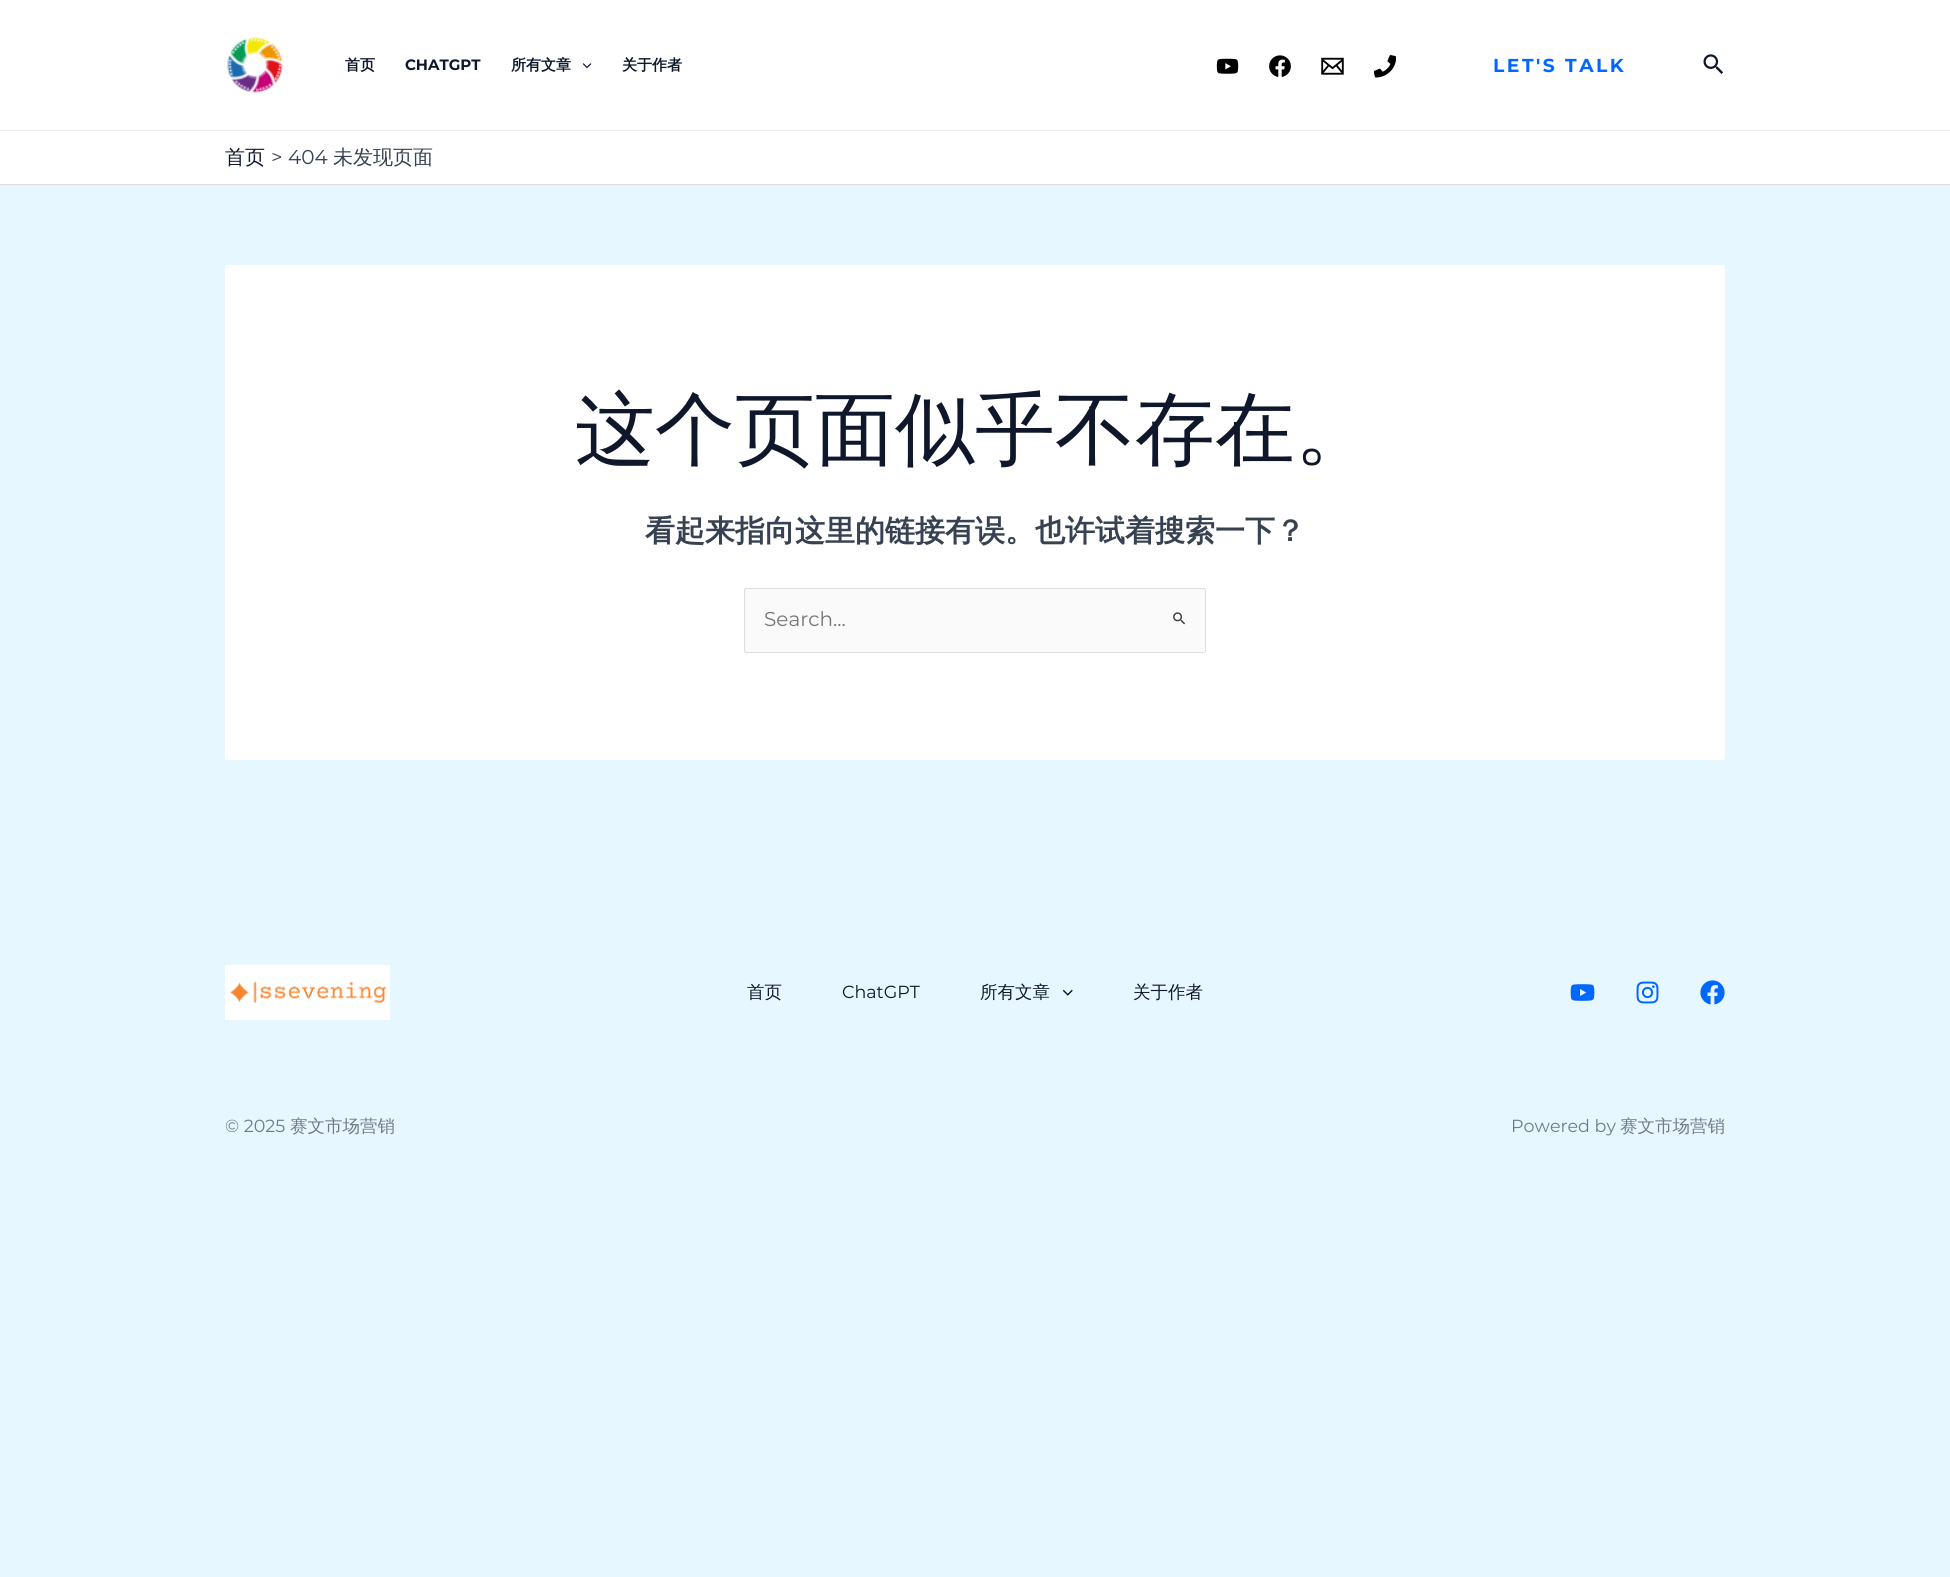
#include <cairo.h>
#include <math.h>
#include <stddef.h>


static void spaced_text(cairo_t *cr, double x, double y, const char *s, double letter, double word) {
    cairo_move_to(cr, x, y);
    while (*s) {
        char ch[5] = {0};
        int n = 0;
        do ch[n++] = *s++; while ((*s & 0xC0) == 0x80);
        cairo_show_text(cr, ch);
        cairo_rel_move_to(cr, letter + word * (*ch == ' '), 0);
    }
}

static void round_rect(cairo_t *cr, double x, double y, double w, double h, double r) {
    cairo_new_sub_path(cr);
    cairo_arc(cr, x + w - r, y + h - r, r, 0, M_PI / 2);
    cairo_arc(cr, x + r, y + h - r, r, M_PI / 2, M_PI);
    cairo_arc(cr, x + r, y + r, r, M_PI, 1.5 * M_PI);
    cairo_arc(cr, x + w - r, y + r, r, 1.5 * M_PI, 2 * M_PI);
    cairo_close_path(cr);
}

static void picture(cairo_t *cr, const char *path, double x, double y, double w, double h) {
    cairo_surface_t *image = cairo_image_surface_create_from_png(path);
    cairo_save(cr);
    cairo_set_source_surface(cr, image, x, y);
    cairo_rectangle(cr, x, y, w, h);
    cairo_fill(cr);
    cairo_restore(cr);
    cairo_surface_destroy(image);
}

int main(void) {
    cairo_surface_t *surface = cairo_image_surface_create(CAIRO_FORMAT_RGB24, 1950, 1577);
    cairo_t *cr = cairo_create(surface);
    cairo_font_options_t *options = cairo_font_options_create();
    cairo_font_options_set_hint_metrics(options, CAIRO_HINT_METRICS_OFF);
    cairo_font_options_set_hint_style(options, CAIRO_HINT_STYLE_NONE);
    cairo_set_font_options(cr, options);
    cairo_set_miter_limit(cr, 4);
    cairo_set_source_rgb(cr, 0.906, 0.965, 1);
    cairo_paint(cr);
    cairo_set_source_rgb(cr, 1, 1, 1);
    cairo_rectangle(cr, 0, 0, 1950, 130);
    cairo_fill(cr);
    cairo_set_source_rgb(cr, 0.918, 0.918, 0.918);
    cairo_rectangle(cr, 0, 130, 1950, 1);
    cairo_fill(cr);
    picture(cr, "img1.png", 227, 37, 56, 56);
    cairo_select_font_face(cr, "WenQuanYi Zen Hei", CAIRO_FONT_SLANT_NORMAL, CAIRO_FONT_WEIGHT_BOLD);
    cairo_set_font_size(cr, 15);
    cairo_set_source_rgb(cr, 0.059, 0.09, 0.165);
    cairo_move_to(cr, 345, 70);
    cairo_show_text(cr, "首页");
    cairo_select_font_face(cr, "Montserrat", CAIRO_FONT_SLANT_NORMAL, CAIRO_FONT_WEIGHT_BOLD);
    cairo_move_to(cr, 405, 70);
    cairo_show_text(cr, "CHATGPT");
    cairo_select_font_face(cr, "WenQuanYi Zen Hei", CAIRO_FONT_SLANT_NORMAL, CAIRO_FONT_WEIGHT_BOLD);
    cairo_move_to(cr, 511, 70);
    cairo_show_text(cr, "所有文章");
    picture(cr, "img2.png", 583, 63, 9, 6);
    cairo_move_to(cr, 622, 70);
    cairo_show_text(cr, "关于作者");
    picture(cr, "img3.png", 1216, 58, 23, 16);
    picture(cr, "img4.png", 1269, 55, 22, 22);
    picture(cr, "img5.png", 1321, 57, 23, 18);
    picture(cr, "img6.png", 1374, 55, 22, 23);
    cairo_select_font_face(cr, "Montserrat", CAIRO_FONT_SLANT_NORMAL, CAIRO_FONT_WEIGHT_BOLD);
    cairo_set_font_size(cr, 18.75);
    cairo_set_source_rgb(cr, 0, 0.404, 1);
    spaced_text(cr, 1493, 72, "LET'S TALK", 2.5, 0);
    picture(cr, "img7.png", 1703, 54, 20, 20);
    cairo_set_source_rgb(cr, 1, 1, 1);
    cairo_rectangle(cr, 0, 131, 1950, 53);
    cairo_fill(cr);
    cairo_set_source_rgb(cr, 0.867, 0.867, 0.867);
    cairo_rectangle(cr, 0, 184, 1950, 1);
    cairo_fill(cr);
    cairo_select_font_face(cr, "WenQuanYi Zen Hei Medium", CAIRO_FONT_SLANT_NORMAL, CAIRO_FONT_WEIGHT_NORMAL);
    cairo_set_font_size(cr, 20);
    cairo_set_source_rgb(cr, 0.059, 0.09, 0.165);
    cairo_move_to(cr, 225, 164);
    cairo_show_text(cr, "首页");
    cairo_select_font_face(cr, "Montserrat", CAIRO_FONT_SLANT_NORMAL, CAIRO_FONT_WEIGHT_NORMAL);
    cairo_set_source_rgb(cr, 0.212, 0.255, 0.318);
    cairo_move_to(cr, 271, 164);
    cairo_show_text(cr, ">");
    cairo_move_to(cr, 288, 164);
    cairo_show_text(cr, "404");
    cairo_select_font_face(cr, "WenQuanYi Zen Hei Medium", CAIRO_FONT_SLANT_NORMAL, CAIRO_FONT_WEIGHT_NORMAL);
    cairo_move_to(cr, 333, 164);
    cairo_show_text(cr, "未发现页面");
    cairo_set_source_rgb(cr, 1, 1, 1);
    cairo_rectangle(cr, 225, 265, 1500, 495);
    cairo_fill(cr);
    cairo_set_font_size(cr, 80);
    cairo_set_source_rgb(cr, 0.059, 0.09, 0.165);
    cairo_move_to(cr, 575, 457);
    cairo_show_text(cr, "这个页面似乎不存在。");
    cairo_select_font_face(cr, "WenQuanYi Zen Hei", CAIRO_FONT_SLANT_NORMAL, CAIRO_FONT_WEIGHT_BOLD);
    cairo_set_font_size(cr, 30);
    cairo_set_source_rgb(cr, 0.212, 0.255, 0.318);
    cairo_move_to(cr, 645, 541);
    cairo_show_text(cr, "看起来指向这里的链接有误。也许试着搜索一下？");
    cairo_set_source_rgb(cr, 0.98, 0.98, 0.98);
    round_rect(cr, 744.5, 588.5, 461, 64, 2);
    cairo_fill_preserve(cr);
    cairo_set_source_rgb(cr, 0.867, 0.867, 0.867);
    cairo_set_line_width(cr, 1);
    cairo_stroke(cr);
    cairo_select_font_face(cr, "Montserrat", CAIRO_FONT_SLANT_NORMAL, CAIRO_FONT_WEIGHT_NORMAL);
    cairo_set_font_size(cr, 20);
    cairo_set_source_rgb(cr, 0.459, 0.459, 0.459);
    cairo_move_to(cr, 764, 626);
    cairo_show_text(cr, "Search...");
    picture(cr, "img8.png", 1173, 612, 12, 13);
    picture(cr, "img9.png", 225, 965, 165, 55);
    cairo_select_font_face(cr, "WenQuanYi Zen Hei Medium", CAIRO_FONT_SLANT_NORMAL, CAIRO_FONT_WEIGHT_NORMAL);
    cairo_set_font_size(cr, 17.5);
    cairo_set_source_rgb(cr, 0.059, 0.09, 0.165);
    cairo_move_to(cr, 747, 998);
    cairo_show_text(cr, "首页");
    cairo_select_font_face(cr, "Montserrat", CAIRO_FONT_SLANT_NORMAL, CAIRO_FONT_WEIGHT_NORMAL);
    cairo_move_to(cr, 842, 998);
    cairo_show_text(cr, "ChatGPT");
    cairo_select_font_face(cr, "WenQuanYi Zen Hei Medium", CAIRO_FONT_SLANT_NORMAL, CAIRO_FONT_WEIGHT_NORMAL);
    cairo_move_to(cr, 980, 998);
    cairo_show_text(cr, "所有文章");
    picture(cr, "img10.png", 1063, 989, 10, 7);
    cairo_move_to(cr, 1133, 998);
    cairo_show_text(cr, "关于作者");
    picture(cr, "img11.png", 1570, 984, 25, 17);
    picture(cr, "img12.png", 1636, 981, 23, 23);
    picture(cr, "img13.png", 1700, 980, 25, 25);
    cairo_select_font_face(cr, "Montserrat", CAIRO_FONT_SLANT_NORMAL, CAIRO_FONT_WEIGHT_NORMAL);
    cairo_set_source_rgb(cr, 0.439, 0.486, 0.518);
    cairo_move_to(cr, 225, 1132);
    cairo_show_text(cr, "© 2025");
    cairo_select_font_face(cr, "WenQuanYi Zen Hei Medium", CAIRO_FONT_SLANT_NORMAL, CAIRO_FONT_WEIGHT_NORMAL);
    cairo_move_to(cr, 290, 1132);
    cairo_show_text(cr, "赛文市场营销");
    cairo_select_font_face(cr, "Montserrat", CAIRO_FONT_SLANT_NORMAL, CAIRO_FONT_WEIGHT_NORMAL);
    cairo_move_to(cr, 1511, 1132);
    cairo_show_text(cr, "Powered by");
    cairo_select_font_face(cr, "WenQuanYi Zen Hei Medium", CAIRO_FONT_SLANT_NORMAL, CAIRO_FONT_WEIGHT_NORMAL);
    cairo_move_to(cr, 1620, 1132);
    cairo_show_text(cr, "赛文市场营销");
    cairo_surface_write_to_png(surface, "page.png");
    cairo_font_options_destroy(options);
    cairo_destroy(cr);
    cairo_surface_destroy(surface);
    return 0;
}
